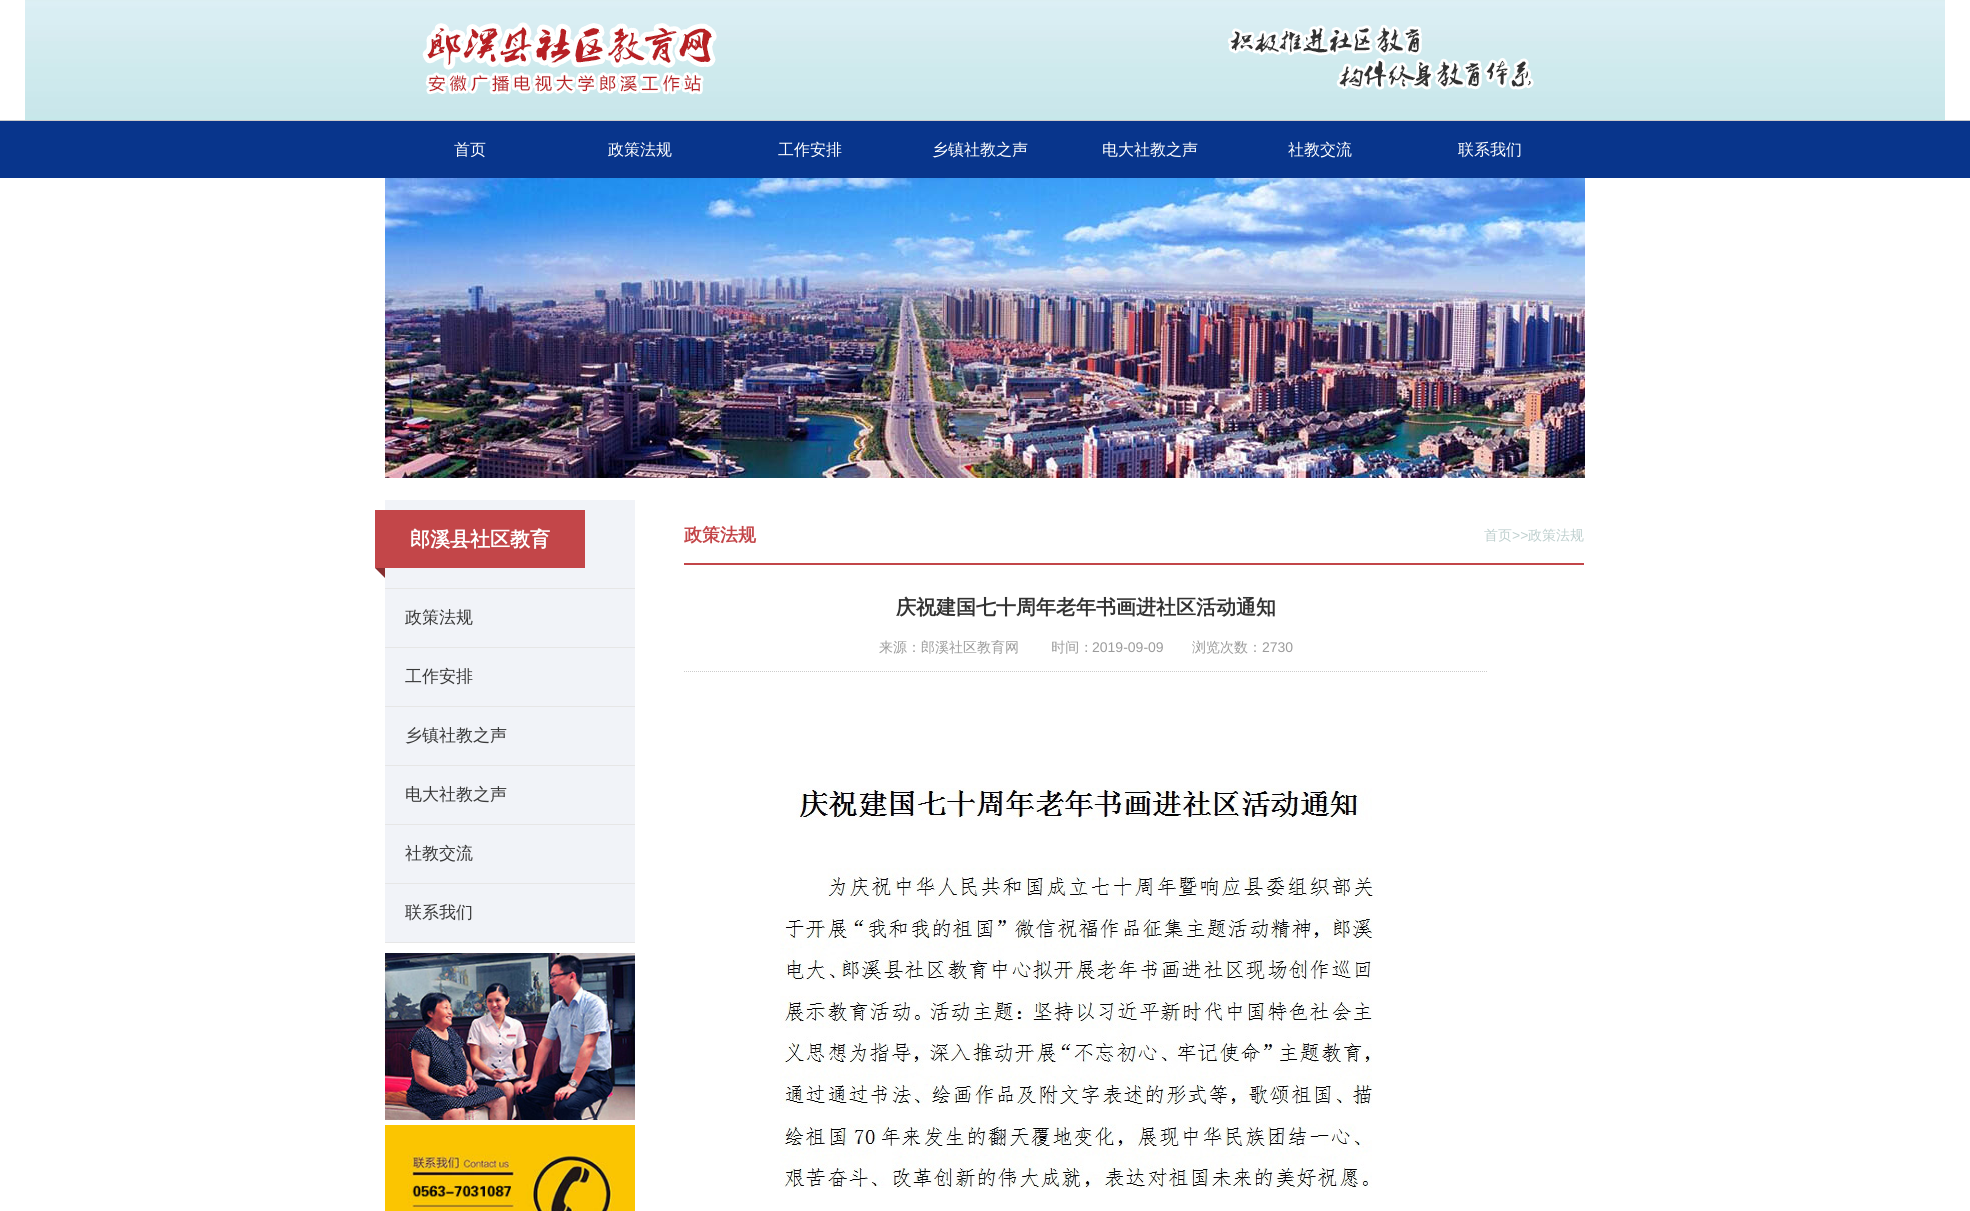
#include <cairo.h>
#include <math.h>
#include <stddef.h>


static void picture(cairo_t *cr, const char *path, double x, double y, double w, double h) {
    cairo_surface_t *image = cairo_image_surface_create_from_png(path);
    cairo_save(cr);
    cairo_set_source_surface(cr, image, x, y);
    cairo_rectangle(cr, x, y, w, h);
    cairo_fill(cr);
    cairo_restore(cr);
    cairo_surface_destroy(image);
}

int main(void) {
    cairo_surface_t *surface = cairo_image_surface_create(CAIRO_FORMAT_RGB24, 1970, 1211);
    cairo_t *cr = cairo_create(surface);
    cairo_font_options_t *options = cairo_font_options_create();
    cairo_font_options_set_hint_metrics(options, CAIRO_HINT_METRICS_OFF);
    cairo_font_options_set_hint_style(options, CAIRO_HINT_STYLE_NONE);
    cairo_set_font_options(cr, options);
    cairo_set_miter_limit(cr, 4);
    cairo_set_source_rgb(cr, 1, 1, 1);
    cairo_paint(cr);
    picture(cr, "img1.png", 25, 0, 1920, 120);
    cairo_set_source_rgb(cr, 0.792, 0.792, 0.792);
    cairo_rectangle(cr, 0, 120, 1970, 1);
    cairo_fill(cr);
    picture(cr, "img2.png", 422, 22, 295, 73);
    picture(cr, "img3.png", 1227, 24, 307, 66);
    cairo_set_source_rgb(cr, 0.035, 0.208, 0.549);
    cairo_rectangle(cr, 0, 121, 1970, 57);
    cairo_fill(cr);
    cairo_select_font_face(cr, "WenQuanYi Zen Hei Medium", CAIRO_FONT_SLANT_NORMAL, CAIRO_FONT_WEIGHT_NORMAL);
    cairo_set_font_size(cr, 16);
    cairo_set_source_rgb(cr, 1, 1, 1);
    cairo_move_to(cr, 454, 155);
    cairo_show_text(cr, "首页");
    cairo_move_to(cr, 608, 155);
    cairo_show_text(cr, "政策法规");
    cairo_move_to(cr, 778, 155);
    cairo_show_text(cr, "工作安排");
    cairo_move_to(cr, 932, 155);
    cairo_show_text(cr, "乡镇社教之声");
    cairo_move_to(cr, 1102, 155);
    cairo_show_text(cr, "电大社教之声");
    cairo_move_to(cr, 1288, 155);
    cairo_show_text(cr, "社教交流");
    cairo_move_to(cr, 1458, 155);
    cairo_show_text(cr, "联系我们");
    picture(cr, "img4.png", 385, 178, 1200, 300);
    cairo_set_source_rgb(cr, 0.945, 0.953, 0.969);
    cairo_rectangle(cr, 385, 500, 250, 442);
    cairo_fill(cr);
    cairo_set_source_rgb(cr, 0.902, 0.902, 0.902);
    cairo_rectangle(cr, 385, 588, 250, 1);
    cairo_fill(cr);
    cairo_set_source_rgb(cr, 0.765, 0.275, 0.286);
    cairo_rectangle(cr, 375, 510, 210, 58);
    cairo_fill(cr);
    cairo_select_font_face(cr, "WenQuanYi Zen Hei", CAIRO_FONT_SLANT_NORMAL, CAIRO_FONT_WEIGHT_BOLD);
    cairo_set_font_size(cr, 20);
    cairo_set_source_rgb(cr, 1, 1, 1);
    cairo_move_to(cr, 410, 546);
    cairo_show_text(cr, "郎溪县社区教育");
    cairo_set_source_rgb(cr, 0.525, 0.18, 0.188);
    cairo_new_path(cr);
    cairo_move_to(cr, 375, 568);
    cairo_line_to(cr, 385, 568);
    cairo_line_to(cr, 385, 578);
    cairo_close_path(cr);
    cairo_fill(cr);
    cairo_set_source_rgb(cr, 0.902, 0.902, 0.902);
    cairo_rectangle(cr, 385, 647, 250, 1);
    cairo_fill(cr);
    cairo_select_font_face(cr, "WenQuanYi Zen Hei Medium", CAIRO_FONT_SLANT_NORMAL, CAIRO_FONT_WEIGHT_NORMAL);
    cairo_set_font_size(cr, 17);
    cairo_set_source_rgb(cr, 0.224, 0.224, 0.224);
    cairo_move_to(cr, 405, 623);
    cairo_show_text(cr, "政策法规");
    cairo_set_source_rgb(cr, 0.902, 0.902, 0.902);
    cairo_rectangle(cr, 385, 706, 250, 1);
    cairo_fill(cr);
    cairo_set_source_rgb(cr, 0.224, 0.224, 0.224);
    cairo_move_to(cr, 405, 682);
    cairo_show_text(cr, "工作安排");
    cairo_set_source_rgb(cr, 0.902, 0.902, 0.902);
    cairo_rectangle(cr, 385, 765, 250, 1);
    cairo_fill(cr);
    cairo_set_source_rgb(cr, 0.224, 0.224, 0.224);
    cairo_move_to(cr, 405, 741);
    cairo_show_text(cr, "乡镇社教之声");
    cairo_set_source_rgb(cr, 0.902, 0.902, 0.902);
    cairo_rectangle(cr, 385, 824, 250, 1);
    cairo_fill(cr);
    cairo_set_source_rgb(cr, 0.224, 0.224, 0.224);
    cairo_move_to(cr, 405, 800);
    cairo_show_text(cr, "电大社教之声");
    cairo_set_source_rgb(cr, 0.902, 0.902, 0.902);
    cairo_rectangle(cr, 385, 883, 250, 1);
    cairo_fill(cr);
    cairo_set_source_rgb(cr, 0.224, 0.224, 0.224);
    cairo_move_to(cr, 405, 859);
    cairo_show_text(cr, "社教交流");
    cairo_set_source_rgb(cr, 0.902, 0.902, 0.902);
    cairo_rectangle(cr, 385, 942, 250, 1);
    cairo_fill(cr);
    cairo_set_source_rgb(cr, 0.224, 0.224, 0.224);
    cairo_move_to(cr, 405, 918);
    cairo_show_text(cr, "联系我们");
    picture(cr, "img5.png", 385, 953, 250, 167);
    picture(cr, "img6.png", 385, 1125, 250, 86);
    cairo_set_source_rgb(cr, 0.765, 0.275, 0.286);
    cairo_rectangle(cr, 684, 563, 900, 2);
    cairo_fill(cr);
    cairo_select_font_face(cr, "WenQuanYi Zen Hei", CAIRO_FONT_SLANT_NORMAL, CAIRO_FONT_WEIGHT_BOLD);
    cairo_set_font_size(cr, 18);
    cairo_move_to(cr, 684, 541);
    cairo_show_text(cr, "政策法规");
    cairo_select_font_face(cr, "WenQuanYi Zen Hei Medium", CAIRO_FONT_SLANT_NORMAL, CAIRO_FONT_WEIGHT_NORMAL);
    cairo_set_font_size(cr, 14);
    cairo_set_source_rgb(cr, 0.745, 0.812, 0.808);
    cairo_move_to(cr, 1484, 540);
    cairo_show_text(cr, "首页");
    cairo_select_font_face(cr, "Liberation Sans", CAIRO_FONT_SLANT_NORMAL, CAIRO_FONT_WEIGHT_NORMAL);
    cairo_move_to(cr, 1512, 540);
    cairo_show_text(cr, ">>");
    cairo_select_font_face(cr, "WenQuanYi Zen Hei Medium", CAIRO_FONT_SLANT_NORMAL, CAIRO_FONT_WEIGHT_NORMAL);
    cairo_move_to(cr, 1528, 540);
    cairo_show_text(cr, "政策法规");
    cairo_new_path(cr);
    cairo_move_to(cr, 684, 671.5);
    cairo_line_to(cr, 1488, 671.5);
    cairo_set_source_rgb(cr, 0.8, 0.8, 0.8);
    cairo_set_line_width(cr, 1);
    cairo_set_dash(cr, (double[]){1, 1}, 2, 0);
    cairo_stroke(cr);
    cairo_select_font_face(cr, "WenQuanYi Zen Hei", CAIRO_FONT_SLANT_NORMAL, CAIRO_FONT_WEIGHT_BOLD);
    cairo_set_font_size(cr, 20);
    cairo_set_source_rgb(cr, 0.2, 0.2, 0.2);
    cairo_move_to(cr, 896, 614);
    cairo_show_text(cr, "庆祝建国七十周年老年书画进社区活动通知");
    cairo_select_font_face(cr, "WenQuanYi Zen Hei Medium", CAIRO_FONT_SLANT_NORMAL, CAIRO_FONT_WEIGHT_NORMAL);
    cairo_set_font_size(cr, 14);
    cairo_set_source_rgb(cr, 0.608, 0.608, 0.608);
    cairo_move_to(cr, 879, 652);
    cairo_show_text(cr, "来源：郎溪社区教育网 　　时间：");
    cairo_select_font_face(cr, "Liberation Sans", CAIRO_FONT_SLANT_NORMAL, CAIRO_FONT_WEIGHT_NORMAL);
    cairo_move_to(cr, 1092, 652);
    cairo_show_text(cr, "2019-09-09");
    cairo_select_font_face(cr, "WenQuanYi Zen Hei Medium", CAIRO_FONT_SLANT_NORMAL, CAIRO_FONT_WEIGHT_NORMAL);
    cairo_move_to(cr, 1192, 652);
    cairo_show_text(cr, "浏览次数：");
    cairo_select_font_face(cr, "Liberation Sans", CAIRO_FONT_SLANT_NORMAL, CAIRO_FONT_WEIGHT_NORMAL);
    cairo_move_to(cr, 1262, 652);
    cairo_show_text(cr, "2730");
    picture(cr, "img7.png", 780, 788, 598, 401);
    cairo_surface_write_to_png(surface, "page.png");
    cairo_font_options_destroy(options);
    cairo_destroy(cr);
    cairo_surface_destroy(surface);
    return 0;
}
